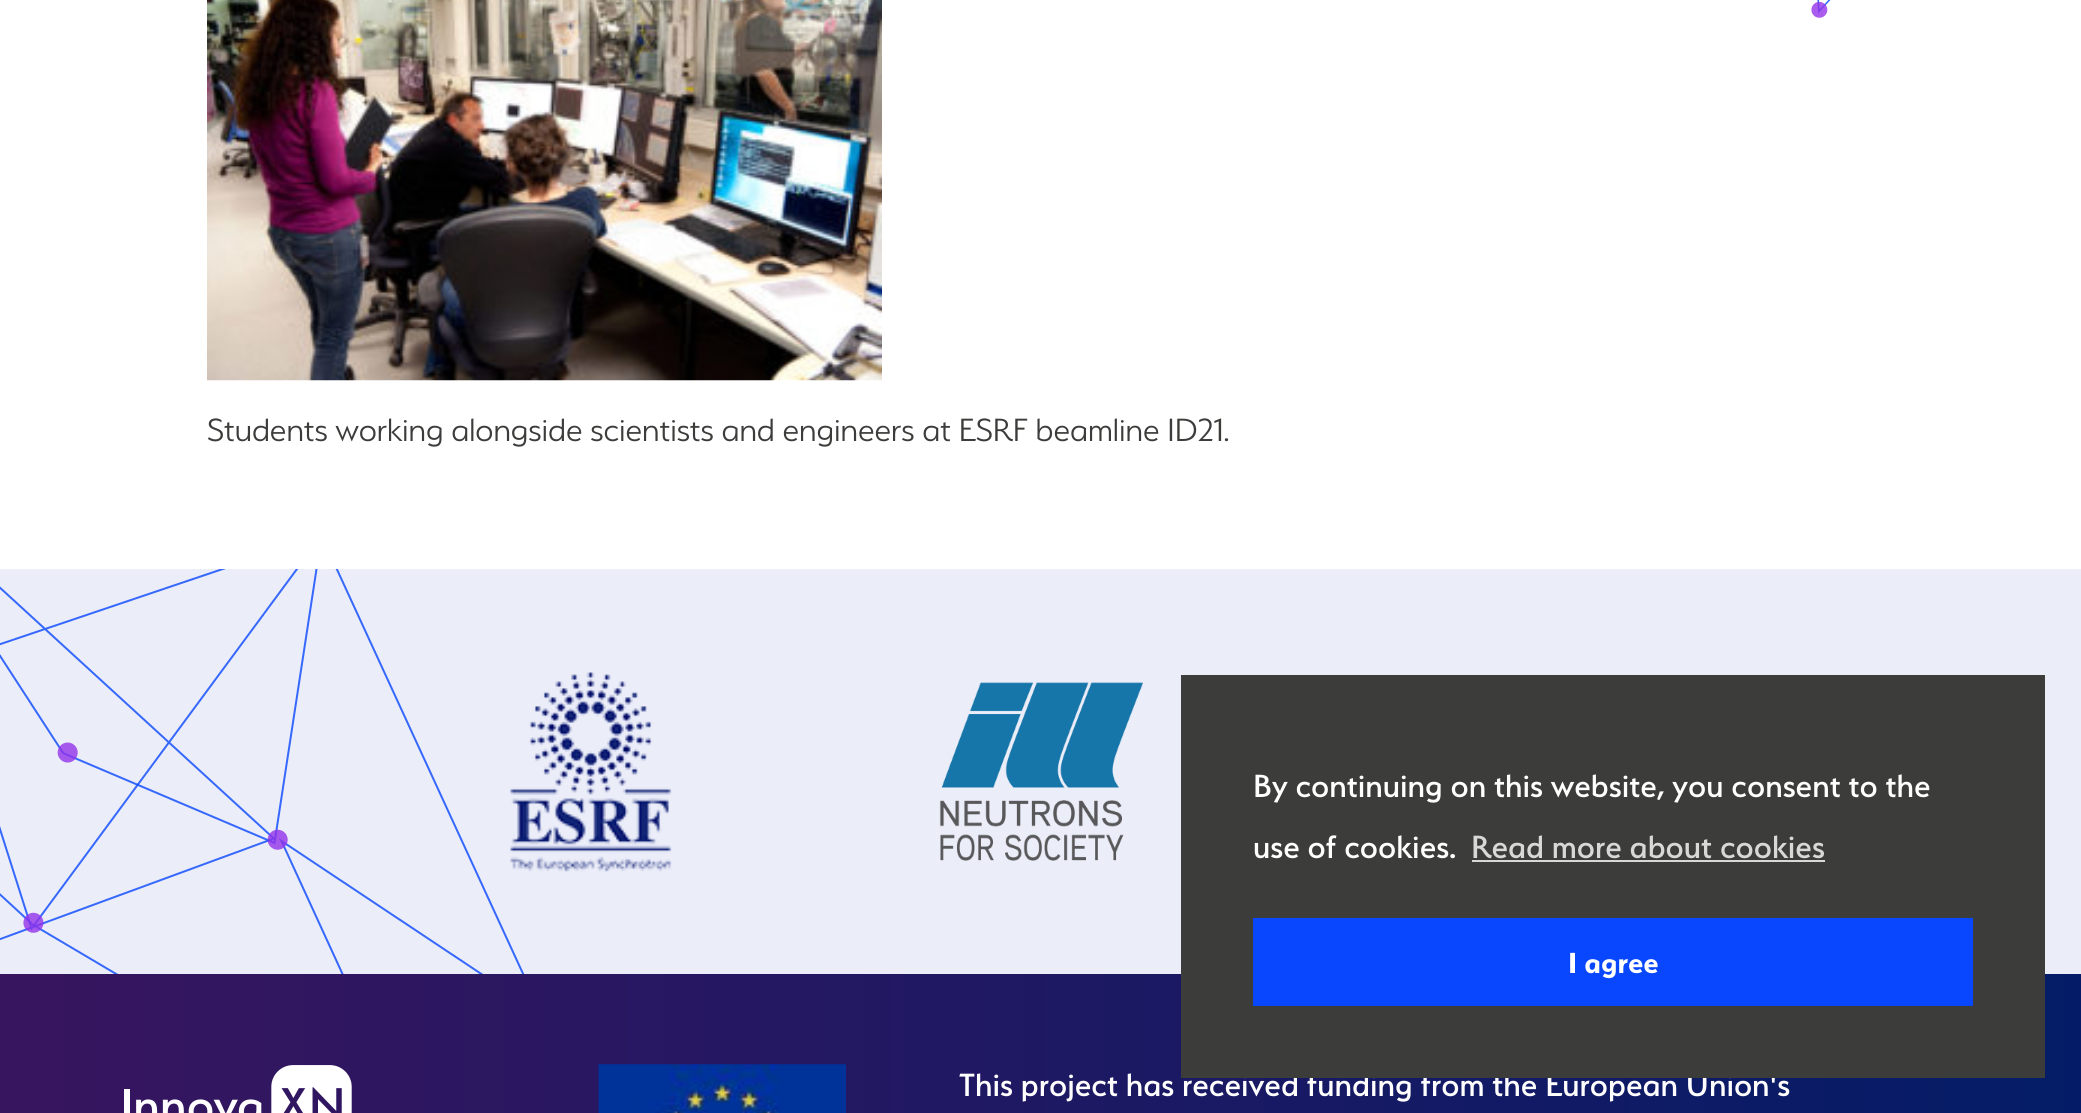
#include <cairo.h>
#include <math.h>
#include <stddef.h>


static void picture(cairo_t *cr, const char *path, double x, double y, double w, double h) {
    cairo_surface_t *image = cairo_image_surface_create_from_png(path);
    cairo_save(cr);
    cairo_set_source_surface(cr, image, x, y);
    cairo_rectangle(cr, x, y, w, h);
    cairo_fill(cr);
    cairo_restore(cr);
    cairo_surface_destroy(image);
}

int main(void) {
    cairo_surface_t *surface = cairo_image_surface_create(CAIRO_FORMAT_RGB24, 2081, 1113);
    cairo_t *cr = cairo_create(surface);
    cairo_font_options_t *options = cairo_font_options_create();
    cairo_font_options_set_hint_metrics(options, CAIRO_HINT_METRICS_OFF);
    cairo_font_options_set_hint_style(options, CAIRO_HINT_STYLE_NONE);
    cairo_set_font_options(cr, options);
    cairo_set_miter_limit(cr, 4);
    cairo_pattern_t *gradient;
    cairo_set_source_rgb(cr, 1, 1, 1);
    cairo_paint(cr);
    picture(cr, "img1.png", 1811, 0, 20, 18);
    picture(cr, "img2.png", 207, 0, 675, 381);
    cairo_select_font_face(cr, "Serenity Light", CAIRO_FONT_SLANT_NORMAL, CAIRO_FONT_WEIGHT_NORMAL);
    cairo_set_font_size(cr, 36);
    cairo_set_source_rgb(cr, 0.235, 0.235, 0.231);
    cairo_move_to(cr, 207, 441);
    cairo_show_text(cr, "Students working alongside scientists and engineers at ESRF beamline ID21.");
    cairo_set_source_rgb(cr, 0.918, 0.929, 0.973);
    cairo_rectangle(cr, 0, 569, 2081, 405);
    cairo_fill(cr);
    picture(cr, "img4.png", 510, 672, 162, 200);
    picture(cr, "img3.png", 0, 569, 525, 405);
    picture(cr, "img5.png", 939, 682, 204, 179);
    gradient = cairo_pattern_create_linear(0, 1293, 2081, 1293);
    cairo_pattern_add_color_stop_rgba(gradient, 0, 0.22, 0.082, 0.373, 1);
    cairo_pattern_add_color_stop_rgba(gradient, 1, 0.016, 0.11, 0.404, 1);
    cairo_set_source(cr, gradient);
    cairo_pattern_destroy(gradient);
    cairo_rectangle(cr, 0, 974, 2081, 139);
    cairo_fill(cr);
    picture(cr, "img6.png", 124, 1065, 228, 48);
    picture(cr, "img7.png", 598, 1064, 248, 49);
    cairo_select_font_face(cr, "Serenity Medium", CAIRO_FONT_SLANT_NORMAL, CAIRO_FONT_WEIGHT_NORMAL);
    cairo_set_source_rgb(cr, 1, 1, 1);
    cairo_move_to(cr, 959, 1096);
    cairo_show_text(cr, "This project has received funding from the European Union's");
    cairo_set_source_rgb(cr, 0.235, 0.235, 0.231);
    cairo_rectangle(cr, 1181, 675, 864, 403);
    cairo_fill(cr);
    cairo_set_source_rgb(cr, 1, 1, 1);
    cairo_move_to(cr, 1253, 797);
    cairo_show_text(cr, "By continuing on this website, you consent to the");
    cairo_move_to(cr, 1253, 858);
    cairo_show_text(cr, "use of cookies.");
    cairo_set_source_rgb(cr, 0.847, 0.847, 0.847);
    cairo_move_to(cr, 1471, 858);
    cairo_show_text(cr, "Read more about cookies");
    cairo_rectangle(cr, 1472, 860, 353, 2);
    cairo_fill(cr);
    cairo_set_source_rgb(cr, 0.035, 0.278, 0.996);
    cairo_rectangle(cr, 1253, 918, 720, 88);
    cairo_fill(cr);
    cairo_select_font_face(cr, "Serenity", CAIRO_FONT_SLANT_NORMAL, CAIRO_FONT_WEIGHT_BOLD);
    cairo_set_font_size(cr, 32.5);
    cairo_set_source_rgb(cr, 1, 1, 1);
    cairo_move_to(cr, 1568, 973);
    cairo_show_text(cr, "I agree");
    cairo_surface_write_to_png(surface, "page.png");
    cairo_font_options_destroy(options);
    cairo_destroy(cr);
    cairo_surface_destroy(surface);
    return 0;
}
